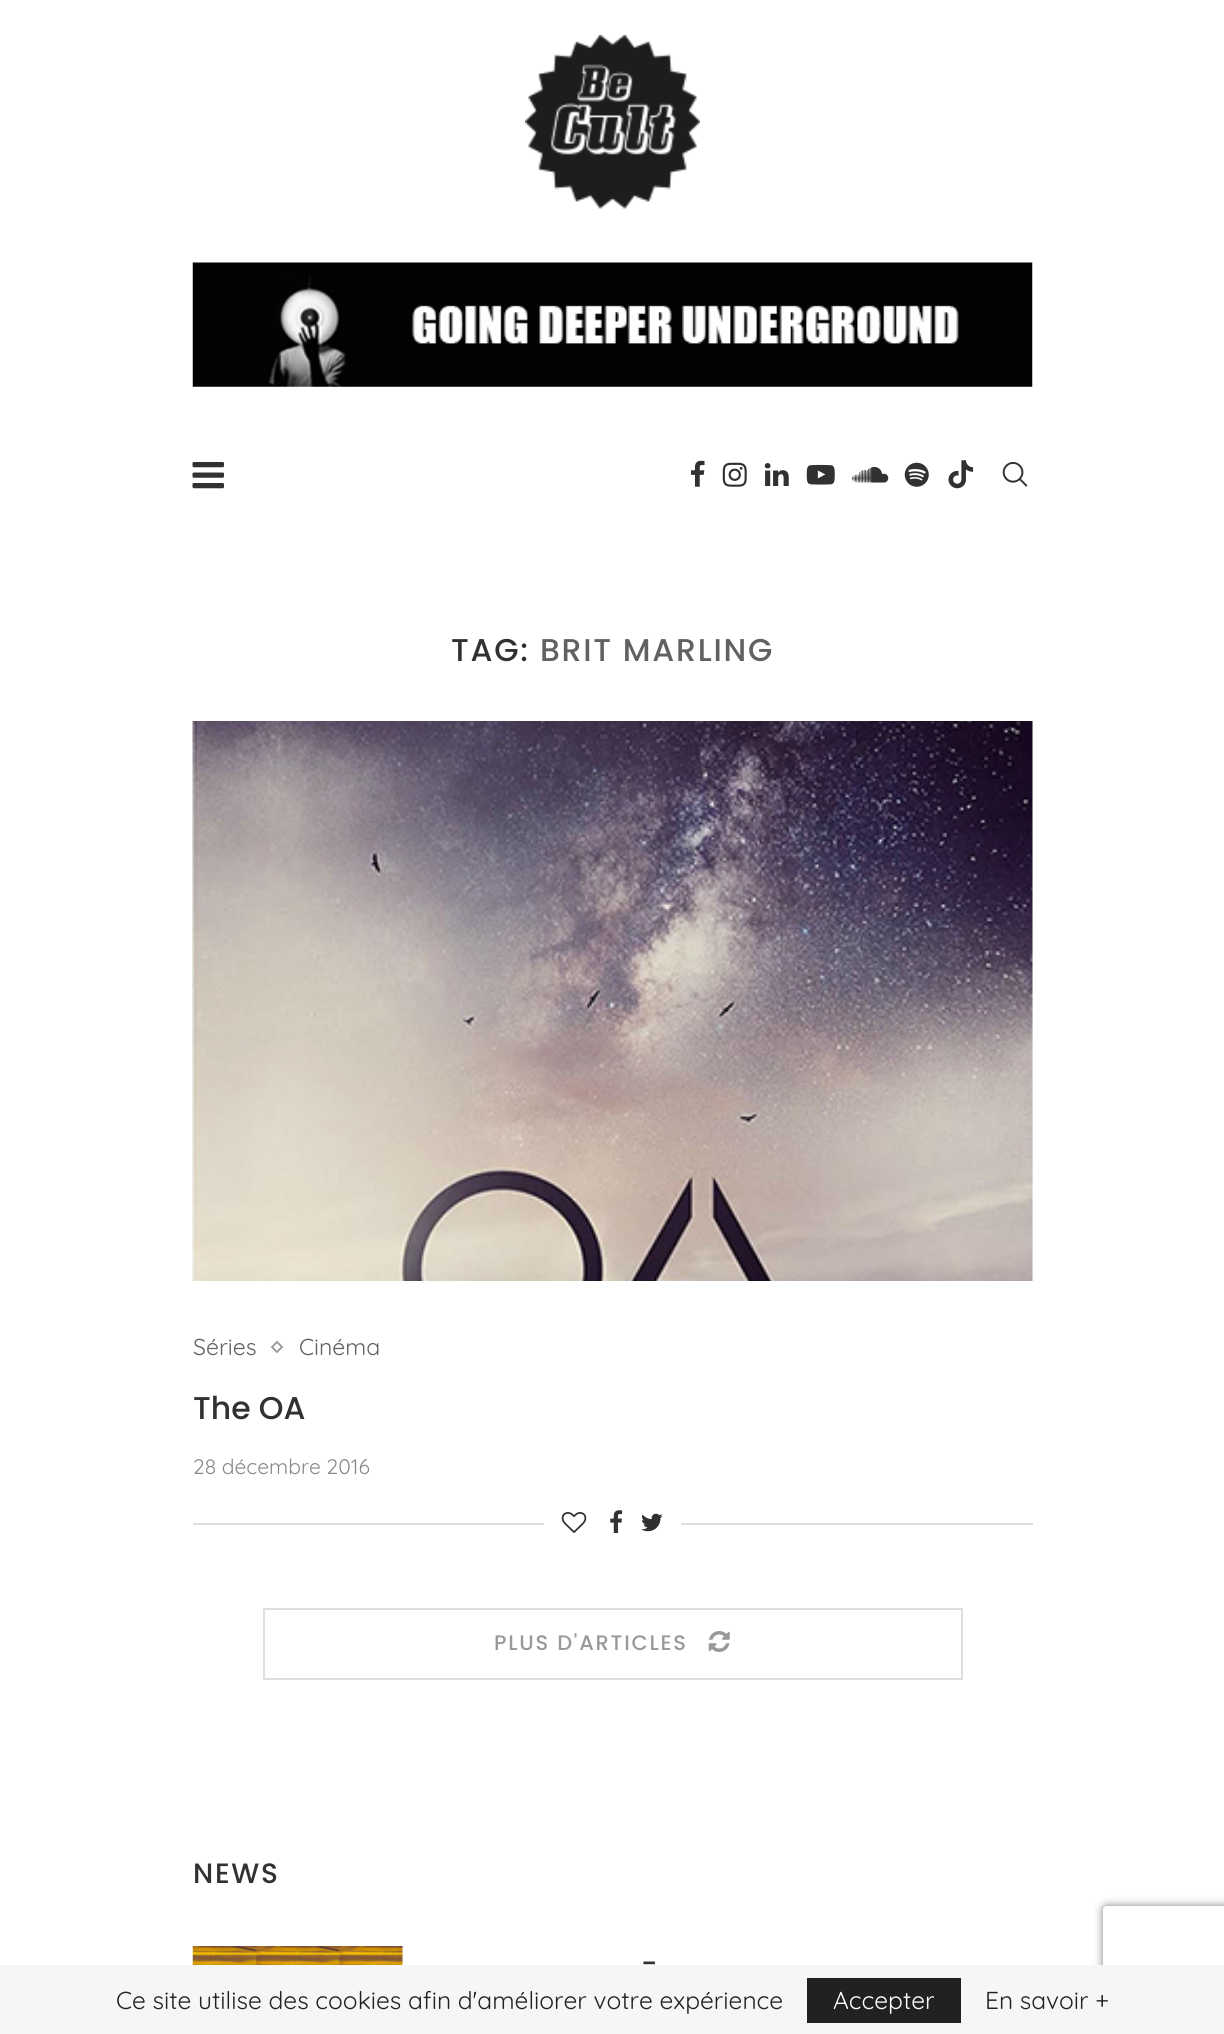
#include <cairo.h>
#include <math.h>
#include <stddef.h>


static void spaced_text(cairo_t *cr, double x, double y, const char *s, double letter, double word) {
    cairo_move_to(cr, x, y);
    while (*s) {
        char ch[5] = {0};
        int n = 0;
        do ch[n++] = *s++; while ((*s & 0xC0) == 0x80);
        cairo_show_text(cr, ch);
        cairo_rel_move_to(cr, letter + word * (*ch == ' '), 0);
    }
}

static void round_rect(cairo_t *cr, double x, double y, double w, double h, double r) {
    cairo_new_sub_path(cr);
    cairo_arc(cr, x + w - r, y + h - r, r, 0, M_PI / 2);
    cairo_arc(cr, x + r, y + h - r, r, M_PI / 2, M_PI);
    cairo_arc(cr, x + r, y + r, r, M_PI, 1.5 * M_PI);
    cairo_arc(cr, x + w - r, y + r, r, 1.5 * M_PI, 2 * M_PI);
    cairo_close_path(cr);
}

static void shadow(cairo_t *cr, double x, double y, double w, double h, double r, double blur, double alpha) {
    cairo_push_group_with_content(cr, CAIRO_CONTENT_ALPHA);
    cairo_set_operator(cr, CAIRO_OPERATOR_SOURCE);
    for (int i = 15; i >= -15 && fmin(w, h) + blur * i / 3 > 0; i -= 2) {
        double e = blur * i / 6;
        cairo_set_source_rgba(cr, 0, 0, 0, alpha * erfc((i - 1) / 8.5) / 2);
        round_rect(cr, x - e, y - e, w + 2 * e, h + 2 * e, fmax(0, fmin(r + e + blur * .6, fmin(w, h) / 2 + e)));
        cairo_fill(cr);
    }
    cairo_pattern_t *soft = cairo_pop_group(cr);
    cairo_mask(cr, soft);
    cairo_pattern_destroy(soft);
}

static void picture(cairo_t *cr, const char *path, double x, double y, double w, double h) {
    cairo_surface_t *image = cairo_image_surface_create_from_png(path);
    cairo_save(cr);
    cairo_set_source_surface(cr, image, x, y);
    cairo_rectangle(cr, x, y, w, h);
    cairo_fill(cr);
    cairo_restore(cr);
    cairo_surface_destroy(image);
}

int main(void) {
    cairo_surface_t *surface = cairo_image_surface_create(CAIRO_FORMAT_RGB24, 1224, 2034);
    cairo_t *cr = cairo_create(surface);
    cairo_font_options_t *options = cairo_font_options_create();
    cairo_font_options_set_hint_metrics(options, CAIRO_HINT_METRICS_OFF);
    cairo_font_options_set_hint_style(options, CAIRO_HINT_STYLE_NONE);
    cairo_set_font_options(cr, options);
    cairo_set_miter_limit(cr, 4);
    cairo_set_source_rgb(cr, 1, 1, 1);
    cairo_paint(cr);
    picture(cr, "img1.png", 525, 35, 175, 174);
    picture(cr, "img2.png", 192, 262, 841, 125);
    picture(cr, "img3.png", 192, 462, 32, 27);
    picture(cr, "img4.png", 691, 460, 14, 27);
    picture(cr, "img5.png", 722, 462, 25, 25);
    picture(cr, "img6.png", 764, 463, 25, 23);
    picture(cr, "img7.png", 806, 464, 29, 21);
    picture(cr, "img8.png", 852, 466, 37, 17);
    picture(cr, "img9.png", 904, 462, 25, 25);
    picture(cr, "img10.png", 948, 460, 26, 29);
    picture(cr, "img11.png", 1002, 462, 26, 25);
    cairo_select_font_face(cr, "Poppins Medium", CAIRO_FONT_SLANT_NORMAL, CAIRO_FONT_WEIGHT_NORMAL);
    cairo_set_font_size(cr, 31.5);
    cairo_set_source_rgb(cr, 0.192, 0.192, 0.192);
    spaced_text(cr, 451, 661, "TAG:", 1.75, 0);
    cairo_set_source_rgb(cr, 0.38, 0.38, 0.38);
    spaced_text(cr, 540, 661, "BRIT MARLING", 1.75, 0);
    cairo_set_source_rgb(cr, 0.961, 0.961, 0.961);
    cairo_rectangle(cr, 1032, 721, 1, 560);
    cairo_fill(cr);
    picture(cr, "img12.png", 192, 721, 841, 560);
    cairo_select_font_face(cr, "Quicksand", CAIRO_FONT_SLANT_NORMAL, CAIRO_FONT_WEIGHT_NORMAL);
    cairo_set_font_size(cr, 23);
    cairo_set_source_rgb(cr, 0.38, 0.38, 0.38);
    cairo_move_to(cr, 193, 1355);
    cairo_show_text(cr, "Séries");
    cairo_new_path(cr);
    cairo_move_to(cr, 277, 1342);
    cairo_line_to(cr, 282, 1347);
    cairo_line_to(cr, 277, 1352);
    cairo_line_to(cr, 272, 1347);
    cairo_close_path(cr);
    cairo_set_source_rgb(cr, 0.596, 0.596, 0.596);
    cairo_set_line_width(cr, 1.8);
    cairo_stroke(cr);
    cairo_set_source_rgb(cr, 0.38, 0.38, 0.38);
    cairo_move_to(cr, 299, 1355);
    cairo_show_text(cr, "Cinéma");
    cairo_select_font_face(cr, "Poppins Medium", CAIRO_FONT_SLANT_NORMAL, CAIRO_FONT_WEIGHT_NORMAL);
    cairo_set_font_size(cr, 31.5);
    cairo_set_source_rgb(cr, 0.192, 0.192, 0.192);
    cairo_move_to(cr, 193, 1419);
    cairo_show_text(cr, "The OA");
    cairo_select_font_face(cr, "Quicksand", CAIRO_FONT_SLANT_NORMAL, CAIRO_FONT_WEIGHT_NORMAL);
    cairo_set_font_size(cr, 21);
    cairo_set_source_rgb(cr, 0.533, 0.533, 0.533);
    cairo_move_to(cr, 193, 1474);
    cairo_show_text(cr, "28 décembre 2016");
    cairo_set_source_rgb(cr, 0.871, 0.871, 0.871);
    cairo_rectangle(cr, 193, 1523, 840, 2);
    cairo_fill(cr);
    cairo_set_source_rgb(cr, 1, 1, 1);
    cairo_rectangle(cr, 544, 1523, 137, 2);
    cairo_fill(cr);
    picture(cr, "img13.png", 561, 1512, 26, 21);
    picture(cr, "img14.png", 610, 1510, 13, 23);
    picture(cr, "img15.png", 641, 1513, 22, 19);
    cairo_rectangle(cr, 264, 1609, 698, 70);
    cairo_set_source_rgb(cr, 0.871, 0.871, 0.871);
    cairo_set_line_width(cr, 2);
    cairo_stroke(cr);
    cairo_select_font_face(cr, "Poppins Medium", CAIRO_FONT_SLANT_NORMAL, CAIRO_FONT_WEIGHT_NORMAL);
    cairo_set_source_rgb(cr, 0.6, 0.6, 0.6);
    spaced_text(cr, 494, 1650, "PLUS D'ARTICLES", 1.75, 0);
    picture(cr, "img16.png", 708, 1631, 22, 21);
    cairo_set_font_size(cr, 28);
    cairo_set_source_rgb(cr, 0.192, 0.192, 0.192);
    spaced_text(cr, 193, 1883, "NEWS", 1.75, 0);
    cairo_set_source_rgb(cr, 0.961, 0.961, 0.961);
    cairo_rectangle(cr, 402, 1946, 1, 19);
    cairo_fill(cr);
    picture(cr, "img17.png", 192, 1946, 211, 19);
    cairo_set_source_rgb(cr, 0.192, 0.192, 0.192);
    cairo_move_to(cr, 641, 1973);
    cairo_show_text(cr, "-");
    cairo_save(cr);
    cairo_set_fill_rule(cr, CAIRO_FILL_RULE_EVEN_ODD);
    cairo_new_path(cr);
    cairo_move_to(cr, 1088, 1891);
    cairo_line_to(cr, 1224, 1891);
    cairo_line_to(cr, 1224, 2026);
    cairo_line_to(cr, 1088, 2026);
    cairo_close_path(cr);
    cairo_move_to(cr, 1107, 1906);
    cairo_line_to(cr, 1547, 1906);
    cairo_curve_to(cr, 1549, 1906, 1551, 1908, 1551, 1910);
    cairo_line_to(cr, 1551, 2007);
    cairo_curve_to(cr, 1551, 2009, 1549, 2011, 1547, 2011);
    cairo_line_to(cr, 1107, 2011);
    cairo_curve_to(cr, 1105, 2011, 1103, 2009, 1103, 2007);
    cairo_line_to(cr, 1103, 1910);
    cairo_curve_to(cr, 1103, 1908, 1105, 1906, 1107, 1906);
    cairo_close_path(cr);
    cairo_clip(cr);
    cairo_set_source_rgb(cr, 0.502, 0.502, 0.502);
    shadow(cr, 1103, 1906, 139, 105, 4, 4.5, 1);
    cairo_restore(cr);
    cairo_set_source_rgb(cr, 0.961, 0.961, 0.961);
    cairo_rectangle(cr, 0, 1965, 1224, 69);
    cairo_fill(cr);
    cairo_select_font_face(cr, "Quicksand", CAIRO_FONT_SLANT_NORMAL, CAIRO_FONT_WEIGHT_NORMAL);
    cairo_set_font_size(cr, 24.5);
    cairo_set_source_rgb(cr, 0.129, 0.129, 0.129);
    cairo_move_to(cr, 116, 2009);
    cairo_show_text(cr, "Ce site utilise des cookies afin d'améliorer votre expérience");
    cairo_rectangle(cr, 807, 1978, 154, 45);
    cairo_fill(cr);
    cairo_set_source_rgb(cr, 1, 1, 1);
    cairo_move_to(cr, 833, 2009);
    cairo_show_text(cr, "Accepter");
    cairo_set_source_rgb(cr, 0.129, 0.129, 0.129);
    cairo_move_to(cr, 985, 2009);
    cairo_show_text(cr, "En savoir +");
    cairo_surface_write_to_png(surface, "page.png");
    cairo_font_options_destroy(options);
    cairo_destroy(cr);
    cairo_surface_destroy(surface);
    return 0;
}
